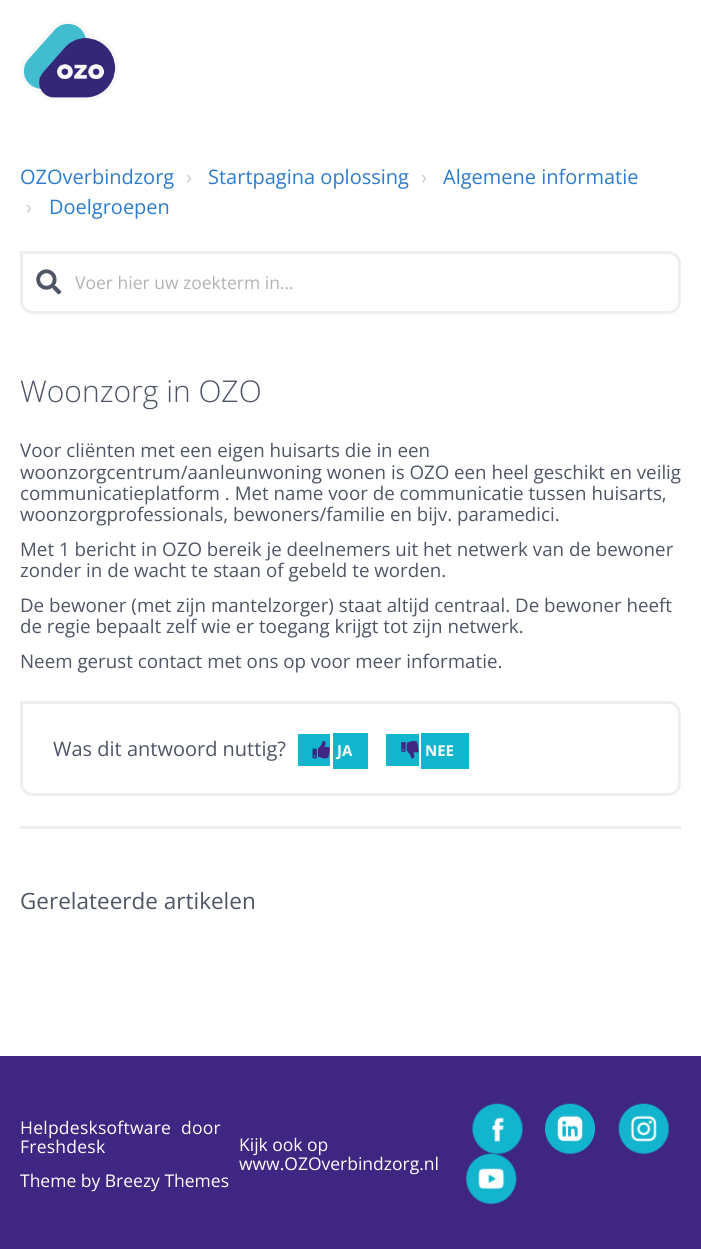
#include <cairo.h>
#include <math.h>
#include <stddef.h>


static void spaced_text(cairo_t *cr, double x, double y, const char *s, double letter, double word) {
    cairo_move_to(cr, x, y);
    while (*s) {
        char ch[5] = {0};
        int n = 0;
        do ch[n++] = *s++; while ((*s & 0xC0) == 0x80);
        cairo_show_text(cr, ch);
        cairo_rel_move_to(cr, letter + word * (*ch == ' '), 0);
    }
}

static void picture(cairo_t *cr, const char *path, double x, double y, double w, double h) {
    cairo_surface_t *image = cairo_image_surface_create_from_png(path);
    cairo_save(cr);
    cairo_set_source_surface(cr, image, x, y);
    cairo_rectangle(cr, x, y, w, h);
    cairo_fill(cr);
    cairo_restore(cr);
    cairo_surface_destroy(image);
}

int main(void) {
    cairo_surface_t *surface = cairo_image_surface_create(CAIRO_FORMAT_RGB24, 701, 1249);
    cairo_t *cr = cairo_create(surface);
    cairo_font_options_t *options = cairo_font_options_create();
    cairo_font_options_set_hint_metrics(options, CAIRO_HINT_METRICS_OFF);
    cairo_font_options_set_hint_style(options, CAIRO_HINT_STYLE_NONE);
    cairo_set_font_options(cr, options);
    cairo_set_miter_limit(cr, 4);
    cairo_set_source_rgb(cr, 1, 1, 1);
    cairo_paint(cr);
    picture(cr, "img1.png", 20, 20, 99, 81);
    cairo_select_font_face(cr, "Open Sans", CAIRO_FONT_SLANT_NORMAL, CAIRO_FONT_WEIGHT_NORMAL);
    cairo_set_font_size(cr, 20);
    cairo_set_source_rgb(cr, 0.176, 0.486, 0.8);
    cairo_move_to(cr, 20, 184);
    cairo_show_text(cr, "OZOverbindzorg");
    cairo_set_source_rgb(cr, 0.8, 0.8, 0.8);
    cairo_move_to(cr, 186, 184);
    cairo_show_text(cr, "›");
    cairo_set_source_rgb(cr, 0.176, 0.486, 0.8);
    cairo_move_to(cr, 208, 184);
    cairo_show_text(cr, "Startpagina oplossing");
    cairo_set_source_rgb(cr, 0.8, 0.8, 0.8);
    cairo_move_to(cr, 421, 184);
    cairo_show_text(cr, "›");
    cairo_set_source_rgb(cr, 0.176, 0.486, 0.8);
    cairo_move_to(cr, 443, 184);
    cairo_show_text(cr, "Algemene informatie");
    cairo_set_source_rgb(cr, 0.8, 0.8, 0.8);
    cairo_move_to(cr, 26, 214);
    cairo_show_text(cr, "›");
    cairo_set_source_rgb(cr, 0.176, 0.486, 0.8);
    cairo_move_to(cr, 49, 214);
    cairo_show_text(cr, "Doelgroepen");
    cairo_new_path(cr);
    cairo_move_to(cr, 21.5, 252.5);
    cairo_line_to(cr, 668, 252.5);
    cairo_curve_to(cr, 674.5, 252.5, 679.5, 257.5, 679.5, 264);
    cairo_line_to(cr, 679.5, 301);
    cairo_curve_to(cr, 679.5, 307.5, 674.5, 312.5, 668, 312.5);
    cairo_line_to(cr, 33, 312.5);
    cairo_curve_to(cr, 26.5, 312.5, 21.5, 307.5, 21.5, 301);
    cairo_close_path(cr);
    cairo_set_source_rgb(cr, 0.925, 0.933, 0.937);
    cairo_set_line_width(cr, 3);
    cairo_stroke(cr);
    picture(cr, "img2.png", 36, 269, 26, 26);
    cairo_set_font_size(cr, 17.5);
    cairo_set_source_rgb(cr, 0.698, 0.698, 0.698);
    cairo_move_to(cr, 75, 289);
    cairo_show_text(cr, "Voer hier uw zoekterm in...");
    cairo_select_font_face(cr, "Open Sans Light", CAIRO_FONT_SLANT_NORMAL, CAIRO_FONT_WEIGHT_NORMAL);
    cairo_set_font_size(cr, 30);
    cairo_set_source_rgb(cr, 0.306, 0.333, 0.396);
    cairo_move_to(cr, 20, 402);
    cairo_show_text(cr, "Woonzorg in OZO");
    cairo_select_font_face(cr, "Open Sans", CAIRO_FONT_SLANT_NORMAL, CAIRO_FONT_WEIGHT_NORMAL);
    cairo_set_font_size(cr, 18.75);
    cairo_move_to(cr, 20, 457);
    cairo_show_text(cr, "Voor cliënten met een eigen huisarts die in een");
    cairo_move_to(cr, 20, 479);
    cairo_show_text(cr, "woonzorgcentrum/aanleunwoning wonen is OZO");
    cairo_move_to(cr, 454, 479);
    cairo_show_text(cr, "een heel geschikt en veilig");
    cairo_move_to(cr, 20, 500);
    cairo_show_text(cr, "communicatieplatform . Met name voor de communicatie tussen huisarts,");
    cairo_move_to(cr, 20, 521);
    cairo_show_text(cr, "woonzorgprofessionals, bewoners/familie en bijv. paramedici.");
    cairo_move_to(cr, 20, 556);
    cairo_show_text(cr, "Met 1 bericht in OZO bereik je deelnemers uit het netwerk van de bewoner");
    cairo_move_to(cr, 20, 577);
    cairo_show_text(cr, "zonder in de wacht te staan of gebeld te worden.");
    cairo_move_to(cr, 20, 612);
    cairo_show_text(cr, "De bewoner (met zijn mantelzorger) staat altijd centraal. De bewoner heeft");
    cairo_move_to(cr, 20, 633);
    cairo_show_text(cr, "de regie bepaalt zelf wie er toegang krijgt tot zijn netwerk.");
    cairo_move_to(cr, 20, 668);
    cairo_show_text(cr, "Neem gerust contact met ons op voor meer informatie.");
    cairo_new_path(cr);
    cairo_move_to(cr, 21.5, 702.5);
    cairo_line_to(cr, 668, 702.5);
    cairo_curve_to(cr, 674.5, 702.5, 679.5, 707.5, 679.5, 714);
    cairo_line_to(cr, 679.5, 783);
    cairo_curve_to(cr, 679.5, 789.5, 674.5, 794.5, 668, 794.5);
    cairo_line_to(cr, 33, 794.5);
    cairo_curve_to(cr, 26.5, 794.5, 21.5, 789.5, 21.5, 783);
    cairo_close_path(cr);
    cairo_set_source_rgb(cr, 0.925, 0.933, 0.937);
    cairo_stroke(cr);
    cairo_set_font_size(cr, 20);
    cairo_set_source_rgb(cr, 0.306, 0.333, 0.396);
    cairo_move_to(cr, 53, 756);
    cairo_show_text(cr, "Was dit antwoord nuttig?");
    cairo_set_source_rgb(cr, 0.075, 0.71, 0.808);
    cairo_rectangle(cr, 298, 734, 32, 32);
    cairo_fill(cr);
    cairo_rectangle(cr, 333, 733, 35, 36);
    cairo_fill(cr);
    picture(cr, "img3.png", 312, 741, 18, 18);
    cairo_select_font_face(cr, "Open Sans", CAIRO_FONT_SLANT_NORMAL, CAIRO_FONT_WEIGHT_BOLD);
    cairo_set_font_size(cr, 15);
    cairo_set_source_rgb(cr, 1, 1, 1);
    cairo_move_to(cr, 337, 756);
    cairo_show_text(cr, "JA");
    cairo_set_source_rgb(cr, 0.075, 0.71, 0.808);
    cairo_rectangle(cr, 386, 734, 33, 32);
    cairo_fill(cr);
    cairo_rectangle(cr, 421, 733, 48, 36);
    cairo_fill(cr);
    picture(cr, "img4.png", 401, 740, 18, 19);
    cairo_set_source_rgb(cr, 1, 1, 1);
    cairo_move_to(cr, 425, 756);
    cairo_show_text(cr, "NEE");
    cairo_set_source_rgb(cr, 0.925, 0.933, 0.937);
    cairo_rectangle(cr, 20, 826, 661, 3);
    cairo_fill(cr);
    cairo_select_font_face(cr, "Open Sans", CAIRO_FONT_SLANT_NORMAL, CAIRO_FONT_WEIGHT_NORMAL);
    cairo_set_font_size(cr, 22.5);
    cairo_set_source_rgb(cr, 0.306, 0.333, 0.396);
    cairo_move_to(cr, 20, 909);
    cairo_show_text(cr, "Gerelateerde artikelen");
    cairo_set_source_rgb(cr, 0.247, 0.149, 0.51);
    cairo_rectangle(cr, 0, 1056, 701, 193);
    cairo_fill(cr);
    cairo_set_font_size(cr, 17.5);
    cairo_set_source_rgb(cr, 1, 1, 1);
    spaced_text(cr, 20, 1134, "Helpdesksoftware", 0.25, 0);
    spaced_text(cr, 181, 1134, "door", 0.25, 0);
    spaced_text(cr, 20, 1153, "Freshdesk", 0.25, 0);
    cairo_move_to(cr, 20, 1187);
    cairo_show_text(cr, "Theme by Breezy Themes");
    cairo_move_to(cr, 239, 1151);
    cairo_show_text(cr, "Kijk ook op");
    cairo_move_to(cr, 239, 1170);
    cairo_show_text(cr, "www.OZOverbindzorg.nl");
    picture(cr, "img5.png", 472, 1103, 51, 51);
    picture(cr, "img6.png", 545, 1103, 50, 51);
    picture(cr, "img7.png", 618, 1103, 51, 51);
    picture(cr, "img8.png", 466, 1153, 51, 51);
    cairo_surface_write_to_png(surface, "page.png");
    cairo_font_options_destroy(options);
    cairo_destroy(cr);
    cairo_surface_destroy(surface);
    return 0;
}
